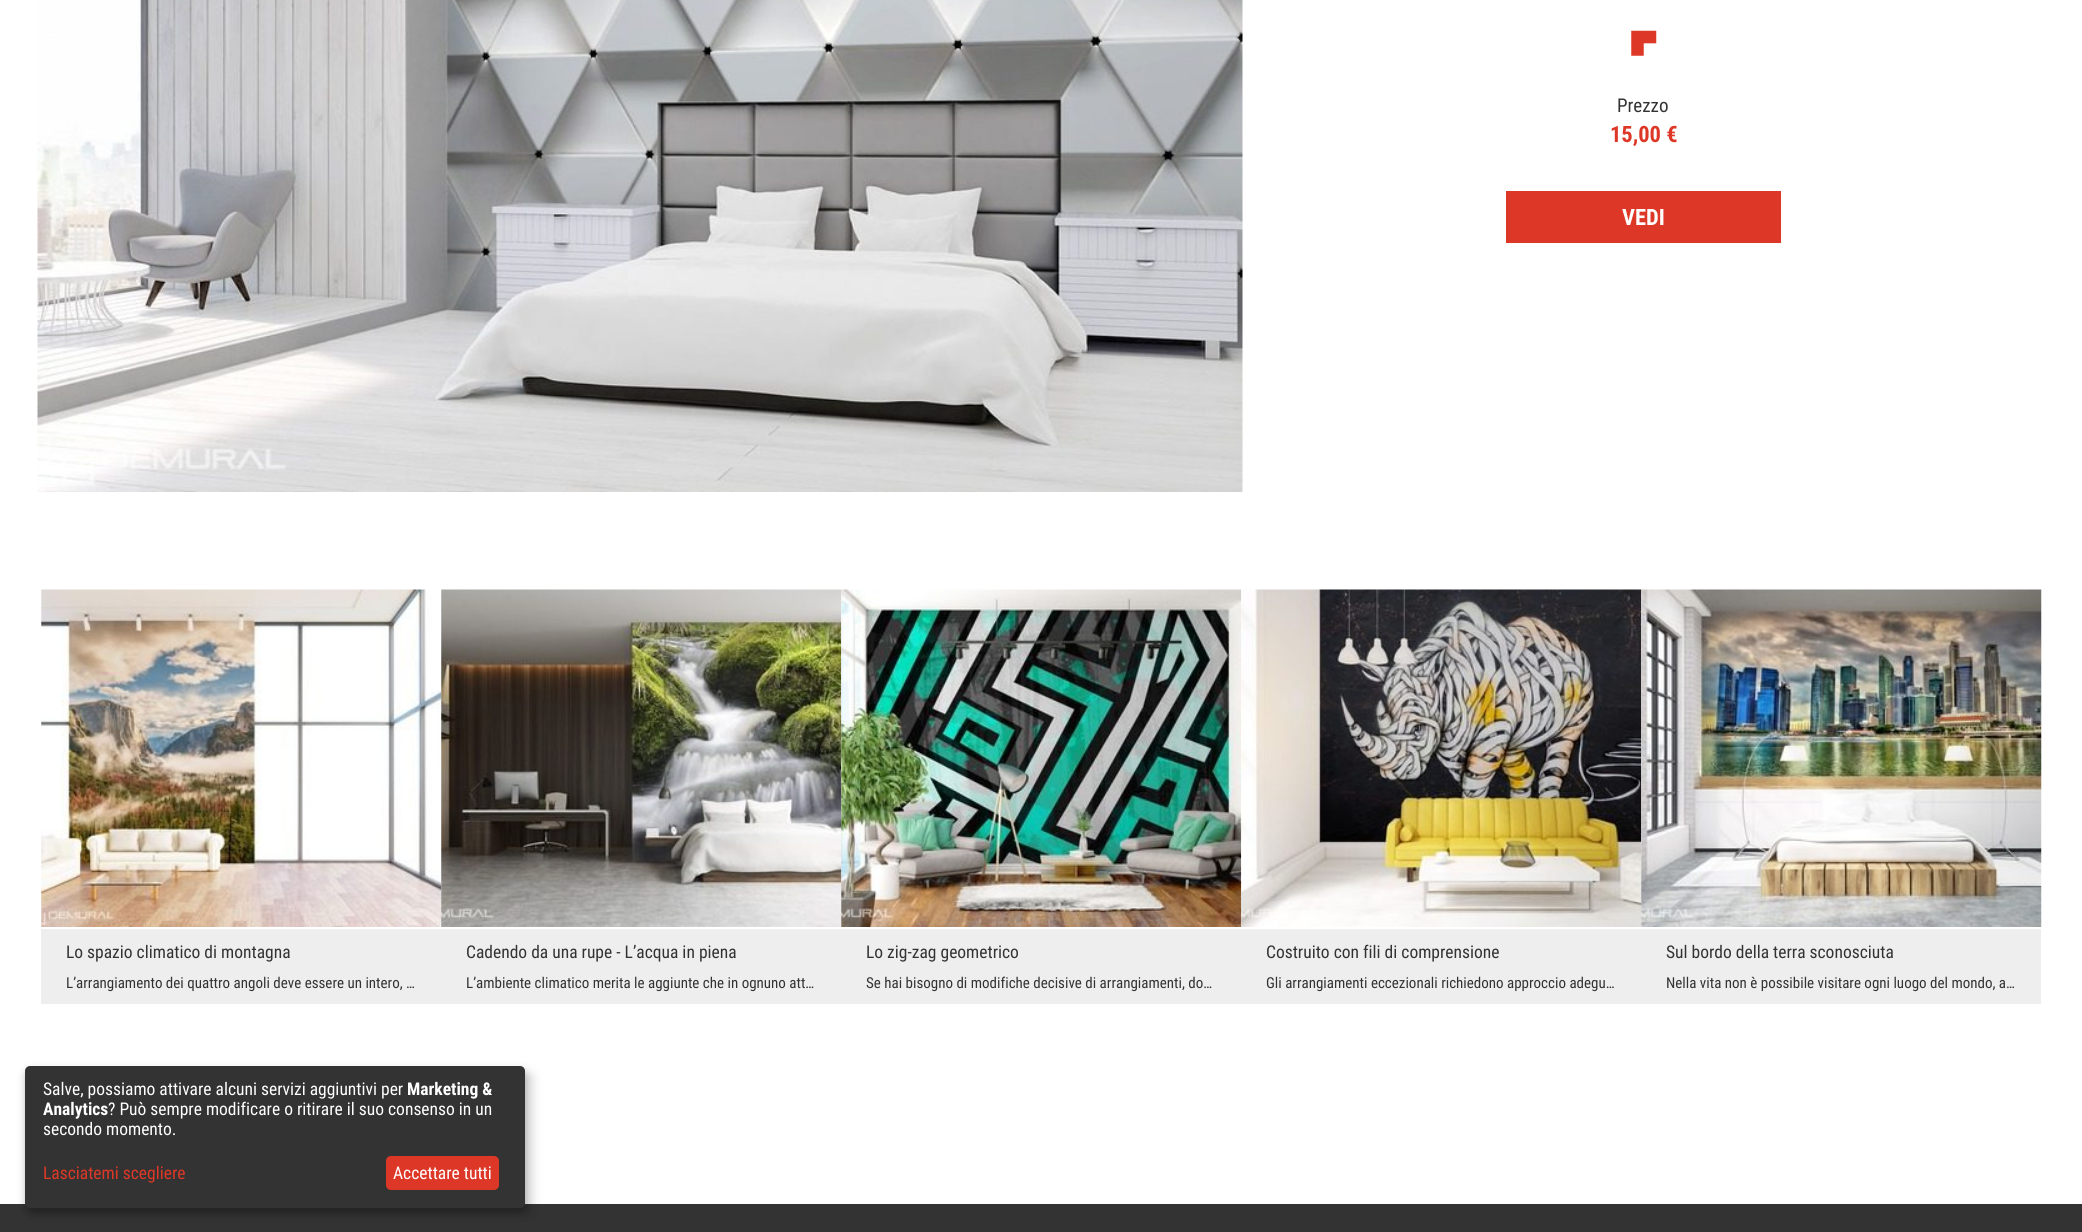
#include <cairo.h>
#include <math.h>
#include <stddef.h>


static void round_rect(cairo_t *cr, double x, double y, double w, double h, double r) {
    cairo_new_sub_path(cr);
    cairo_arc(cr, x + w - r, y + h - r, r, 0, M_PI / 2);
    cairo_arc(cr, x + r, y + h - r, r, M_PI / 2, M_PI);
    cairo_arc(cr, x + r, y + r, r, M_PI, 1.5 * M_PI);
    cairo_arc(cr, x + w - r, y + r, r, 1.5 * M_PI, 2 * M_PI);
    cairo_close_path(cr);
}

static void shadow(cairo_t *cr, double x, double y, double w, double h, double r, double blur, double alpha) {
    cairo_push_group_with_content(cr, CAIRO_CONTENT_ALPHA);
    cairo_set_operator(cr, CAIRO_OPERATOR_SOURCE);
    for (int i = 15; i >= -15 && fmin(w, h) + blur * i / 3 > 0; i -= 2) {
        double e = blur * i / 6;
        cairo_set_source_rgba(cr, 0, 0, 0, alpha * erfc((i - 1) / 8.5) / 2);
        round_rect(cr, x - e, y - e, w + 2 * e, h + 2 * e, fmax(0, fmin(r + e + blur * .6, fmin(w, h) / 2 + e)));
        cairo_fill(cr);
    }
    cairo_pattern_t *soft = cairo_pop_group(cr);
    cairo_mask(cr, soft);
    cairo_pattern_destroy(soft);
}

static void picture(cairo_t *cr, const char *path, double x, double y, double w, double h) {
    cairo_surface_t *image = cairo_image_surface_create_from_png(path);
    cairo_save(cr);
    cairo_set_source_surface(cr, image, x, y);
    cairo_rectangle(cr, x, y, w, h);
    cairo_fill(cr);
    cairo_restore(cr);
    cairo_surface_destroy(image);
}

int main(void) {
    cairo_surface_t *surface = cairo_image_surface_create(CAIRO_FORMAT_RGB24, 2082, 1232);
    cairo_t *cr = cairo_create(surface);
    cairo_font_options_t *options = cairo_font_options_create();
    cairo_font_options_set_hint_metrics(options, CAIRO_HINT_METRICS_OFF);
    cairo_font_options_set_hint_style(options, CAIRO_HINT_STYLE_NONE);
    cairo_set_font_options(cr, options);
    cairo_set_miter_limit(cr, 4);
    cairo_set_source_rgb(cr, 1, 1, 1);
    cairo_paint(cr);
    picture(cr, "img1.png", 37, 0, 1206, 492);
    picture(cr, "img2.png", 1631, 30, 26, 26);
    cairo_select_font_face(cr, "Roboto Condensed", CAIRO_FONT_SLANT_NORMAL, CAIRO_FONT_WEIGHT_NORMAL);
    cairo_set_font_size(cr, 19);
    cairo_set_source_rgb(cr, 0.2, 0.2, 0.2);
    cairo_move_to(cr, 1617, 112);
    cairo_show_text(cr, "Prezzo");
    cairo_select_font_face(cr, "Roboto Condensed", CAIRO_FONT_SLANT_NORMAL, CAIRO_FONT_WEIGHT_BOLD);
    cairo_set_font_size(cr, 22.5);
    cairo_set_source_rgb(cr, 0.867, 0.22, 0.153);
    cairo_move_to(cr, 1610, 142);
    cairo_show_text(cr, "15,00 €");
    cairo_rectangle(cr, 1506, 191, 275, 52);
    cairo_fill(cr);
    cairo_set_source_rgb(cr, 1, 1, 1);
    cairo_move_to(cr, 1622, 225);
    cairo_show_text(cr, "VEDI");
    picture(cr, "img3.png", 41, 589, 401, 338);
    cairo_set_source_rgb(cr, 0.933, 0.933, 0.933);
    cairo_rectangle(cr, 41, 929, 400, 75);
    cairo_fill(cr);
    cairo_select_font_face(cr, "Roboto Condensed", CAIRO_FONT_SLANT_NORMAL, CAIRO_FONT_WEIGHT_NORMAL);
    cairo_set_font_size(cr, 17.5);
    cairo_set_source_rgb(cr, 0.2, 0.2, 0.2);
    cairo_move_to(cr, 66, 958);
    cairo_show_text(cr, "Lo spazio climatico di montagna");
    cairo_set_font_size(cr, 15);
    cairo_move_to(cr, 66, 988);
    cairo_show_text(cr, "L’arrangiamento dei quattro angoli deve essere un intero, …");
    picture(cr, "img4.png", 441, 589, 401, 338);
    cairo_set_source_rgb(cr, 0.933, 0.933, 0.933);
    cairo_rectangle(cr, 441, 929, 400, 75);
    cairo_fill(cr);
    cairo_set_font_size(cr, 17.5);
    cairo_set_source_rgb(cr, 0.2, 0.2, 0.2);
    cairo_move_to(cr, 466, 958);
    cairo_show_text(cr, "Cadendo da una rupe - L’acqua in piena");
    cairo_set_font_size(cr, 15);
    cairo_move_to(cr, 466, 988);
    cairo_show_text(cr, "L’ambiente climatico merita le aggiunte che in ognuno att…");
    picture(cr, "img5.png", 841, 589, 401, 338);
    cairo_set_source_rgb(cr, 0.933, 0.933, 0.933);
    cairo_rectangle(cr, 841, 929, 400, 75);
    cairo_fill(cr);
    cairo_set_font_size(cr, 17.5);
    cairo_set_source_rgb(cr, 0.2, 0.2, 0.2);
    cairo_move_to(cr, 866, 958);
    cairo_show_text(cr, "Lo zig-zag geometrico");
    cairo_set_font_size(cr, 15);
    cairo_move_to(cr, 866, 988);
    cairo_show_text(cr, "Se hai bisogno di modifiche decisive di arrangiamenti, do…");
    picture(cr, "img6.png", 1241, 589, 401, 338);
    cairo_set_source_rgb(cr, 0.933, 0.933, 0.933);
    cairo_rectangle(cr, 1241, 929, 400, 75);
    cairo_fill(cr);
    cairo_set_font_size(cr, 17.5);
    cairo_set_source_rgb(cr, 0.2, 0.2, 0.2);
    cairo_move_to(cr, 1266, 958);
    cairo_show_text(cr, "Costruito con fili di comprensione");
    cairo_set_font_size(cr, 15);
    cairo_move_to(cr, 1266, 988);
    cairo_show_text(cr, "Gli arrangiamenti eccezionali richiedono approccio adegu…");
    picture(cr, "img7.png", 1641, 589, 401, 338);
    cairo_set_source_rgb(cr, 0.933, 0.933, 0.933);
    cairo_rectangle(cr, 1641, 929, 400, 75);
    cairo_fill(cr);
    cairo_set_font_size(cr, 17.5);
    cairo_set_source_rgb(cr, 0.2, 0.2, 0.2);
    cairo_move_to(cr, 1666, 958);
    cairo_show_text(cr, "Sul bordo della terra sconosciuta");
    cairo_set_font_size(cr, 15);
    cairo_move_to(cr, 1666, 988);
    cairo_show_text(cr, "Nella vita non è possibile visitare ogni luogo del mondo, a…");
    cairo_rectangle(cr, 0, 1204, 2082, 28);
    cairo_fill(cr);
    cairo_set_source_rgb(cr, 0, 0, 0);
    shadow(cr, 31, 1073, 500, 141, 5, 6, 0.19);
    shadow(cr, 25, 1071, 500, 142, 5, 4, 0.2);
    cairo_set_source_rgb(cr, 0.2, 0.2, 0.2);
    round_rect(cr, 25, 1066, 500, 142, 5);
    cairo_fill(cr);
    cairo_set_font_size(cr, 17.5);
    cairo_set_source_rgb(cr, 1, 1, 1);
    cairo_move_to(cr, 43, 1095);
    cairo_show_text(cr, "Salve, possiamo attivare alcuni servizi aggiuntivi per");
    cairo_select_font_face(cr, "Roboto Condensed", CAIRO_FONT_SLANT_NORMAL, CAIRO_FONT_WEIGHT_BOLD);
    cairo_move_to(cr, 407, 1095);
    cairo_show_text(cr, "Marketing &");
    cairo_move_to(cr, 43, 1115);
    cairo_show_text(cr, "Analytics");
    cairo_select_font_face(cr, "Roboto Condensed", CAIRO_FONT_SLANT_NORMAL, CAIRO_FONT_WEIGHT_NORMAL);
    cairo_move_to(cr, 108, 1115);
    cairo_show_text(cr, "? Può sempre modificare o ritirare il suo consenso in un");
    cairo_move_to(cr, 43, 1135);
    cairo_show_text(cr, "secondo momento.");
    cairo_set_source_rgb(cr, 0.867, 0.22, 0.153);
    cairo_move_to(cr, 43, 1179);
    cairo_show_text(cr, "Lasciatemi scegliere");
    round_rect(cr, 386, 1156, 113, 34, 5);
    cairo_fill(cr);
    cairo_set_source_rgb(cr, 1, 1, 1);
    cairo_move_to(cr, 393, 1179);
    cairo_show_text(cr, "Accettare tutti");
    cairo_surface_write_to_png(surface, "page.png");
    cairo_font_options_destroy(options);
    cairo_destroy(cr);
    cairo_surface_destroy(surface);
    return 0;
}
